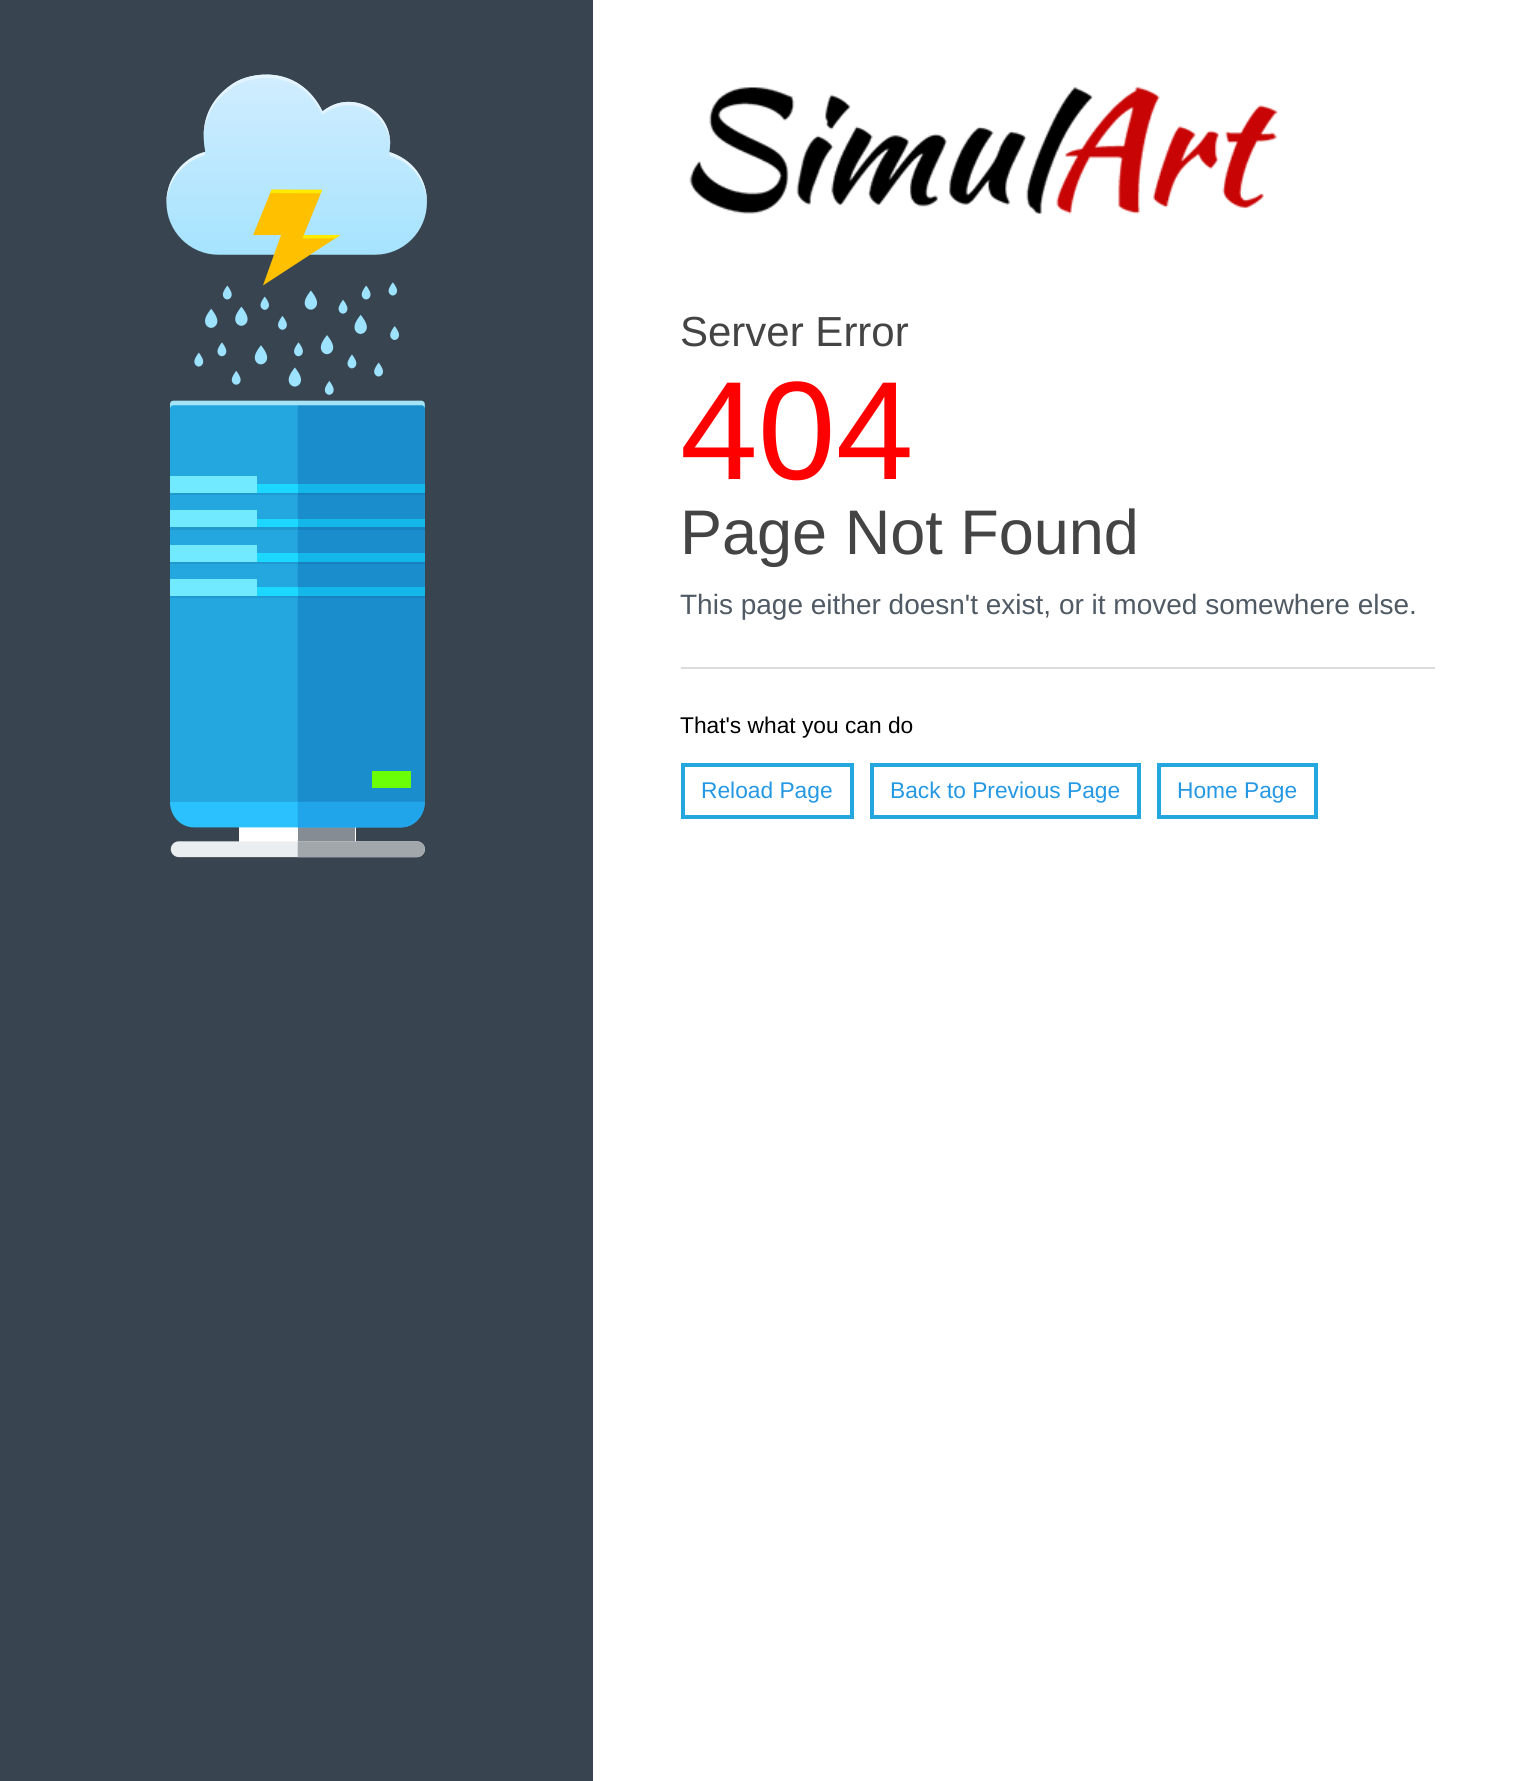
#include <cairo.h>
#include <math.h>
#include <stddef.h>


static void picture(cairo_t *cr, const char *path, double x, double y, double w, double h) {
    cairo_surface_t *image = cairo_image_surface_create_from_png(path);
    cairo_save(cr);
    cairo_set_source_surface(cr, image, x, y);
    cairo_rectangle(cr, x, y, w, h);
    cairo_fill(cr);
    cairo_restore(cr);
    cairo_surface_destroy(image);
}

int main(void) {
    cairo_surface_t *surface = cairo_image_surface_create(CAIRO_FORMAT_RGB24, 1522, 1781);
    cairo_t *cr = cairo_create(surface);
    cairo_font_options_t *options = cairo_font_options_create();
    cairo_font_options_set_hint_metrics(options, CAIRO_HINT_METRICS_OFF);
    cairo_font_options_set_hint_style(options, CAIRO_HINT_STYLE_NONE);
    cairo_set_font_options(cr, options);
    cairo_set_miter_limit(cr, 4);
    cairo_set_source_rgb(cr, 1, 1, 1);
    cairo_paint(cr);
    cairo_set_source_rgb(cr, 0.22, 0.267, 0.31);
    cairo_rectangle(cr, 0, 0, 593, 1781);
    cairo_fill(cr);
    picture(cr, "img1.png", 166, 74, 261, 784);
    picture(cr, "img2.png", 689, 87, 589, 127);
    cairo_select_font_face(cr, "Liberation Sans", CAIRO_FONT_SLANT_NORMAL, CAIRO_FONT_WEIGHT_NORMAL);
    cairo_set_font_size(cr, 42);
    cairo_set_source_rgb(cr, 0.267, 0.267, 0.267);
    cairo_move_to(cr, 680, 346);
    cairo_show_text(cr, "Server Error");
    cairo_set_font_size(cr, 140);
    cairo_set_source_rgb(cr, 1, 0, 0);
    cairo_move_to(cr, 680, 479);
    cairo_show_text(cr, "404");
    cairo_set_font_size(cr, 63);
    cairo_set_source_rgb(cr, 0.267, 0.267, 0.267);
    cairo_move_to(cr, 680, 554);
    cairo_show_text(cr, "Page Not Found");
    cairo_set_font_size(cr, 28);
    cairo_set_source_rgb(cr, 0.31, 0.353, 0.392);
    cairo_move_to(cr, 680, 614);
    cairo_show_text(cr, "This page either doesn't exist, or it moved somewhere else.");
    cairo_set_source_rgb(cr, 0.867, 0.867, 0.867);
    cairo_rectangle(cr, 681, 667, 754, 2);
    cairo_fill(cr);
    cairo_set_font_size(cr, 22.75);
    cairo_set_source_rgb(cr, 0, 0, 0);
    cairo_move_to(cr, 680, 733);
    cairo_show_text(cr, "That's what you can do");
    cairo_rectangle(cr, 683, 765, 169, 52);
    cairo_set_source_rgb(cr, 0.137, 0.655, 0.871);
    cairo_set_line_width(cr, 4);
    cairo_stroke(cr);
    cairo_set_source_rgb(cr, 0.141, 0.596, 0.89);
    cairo_move_to(cr, 701, 798);
    cairo_show_text(cr, "Reload Page");
    cairo_rectangle(cr, 872, 765, 267, 52);
    cairo_set_source_rgb(cr, 0.137, 0.655, 0.871);
    cairo_stroke(cr);
    cairo_set_source_rgb(cr, 0.141, 0.596, 0.89);
    cairo_move_to(cr, 890, 798);
    cairo_show_text(cr, "Back to Previous Page");
    cairo_rectangle(cr, 1159, 765, 157, 52);
    cairo_set_source_rgb(cr, 0.137, 0.655, 0.871);
    cairo_stroke(cr);
    cairo_set_source_rgb(cr, 0.141, 0.596, 0.89);
    cairo_move_to(cr, 1177, 798);
    cairo_show_text(cr, "Home Page");
    cairo_surface_write_to_png(surface, "page.png");
    cairo_font_options_destroy(options);
    cairo_destroy(cr);
    cairo_surface_destroy(surface);
    return 0;
}
